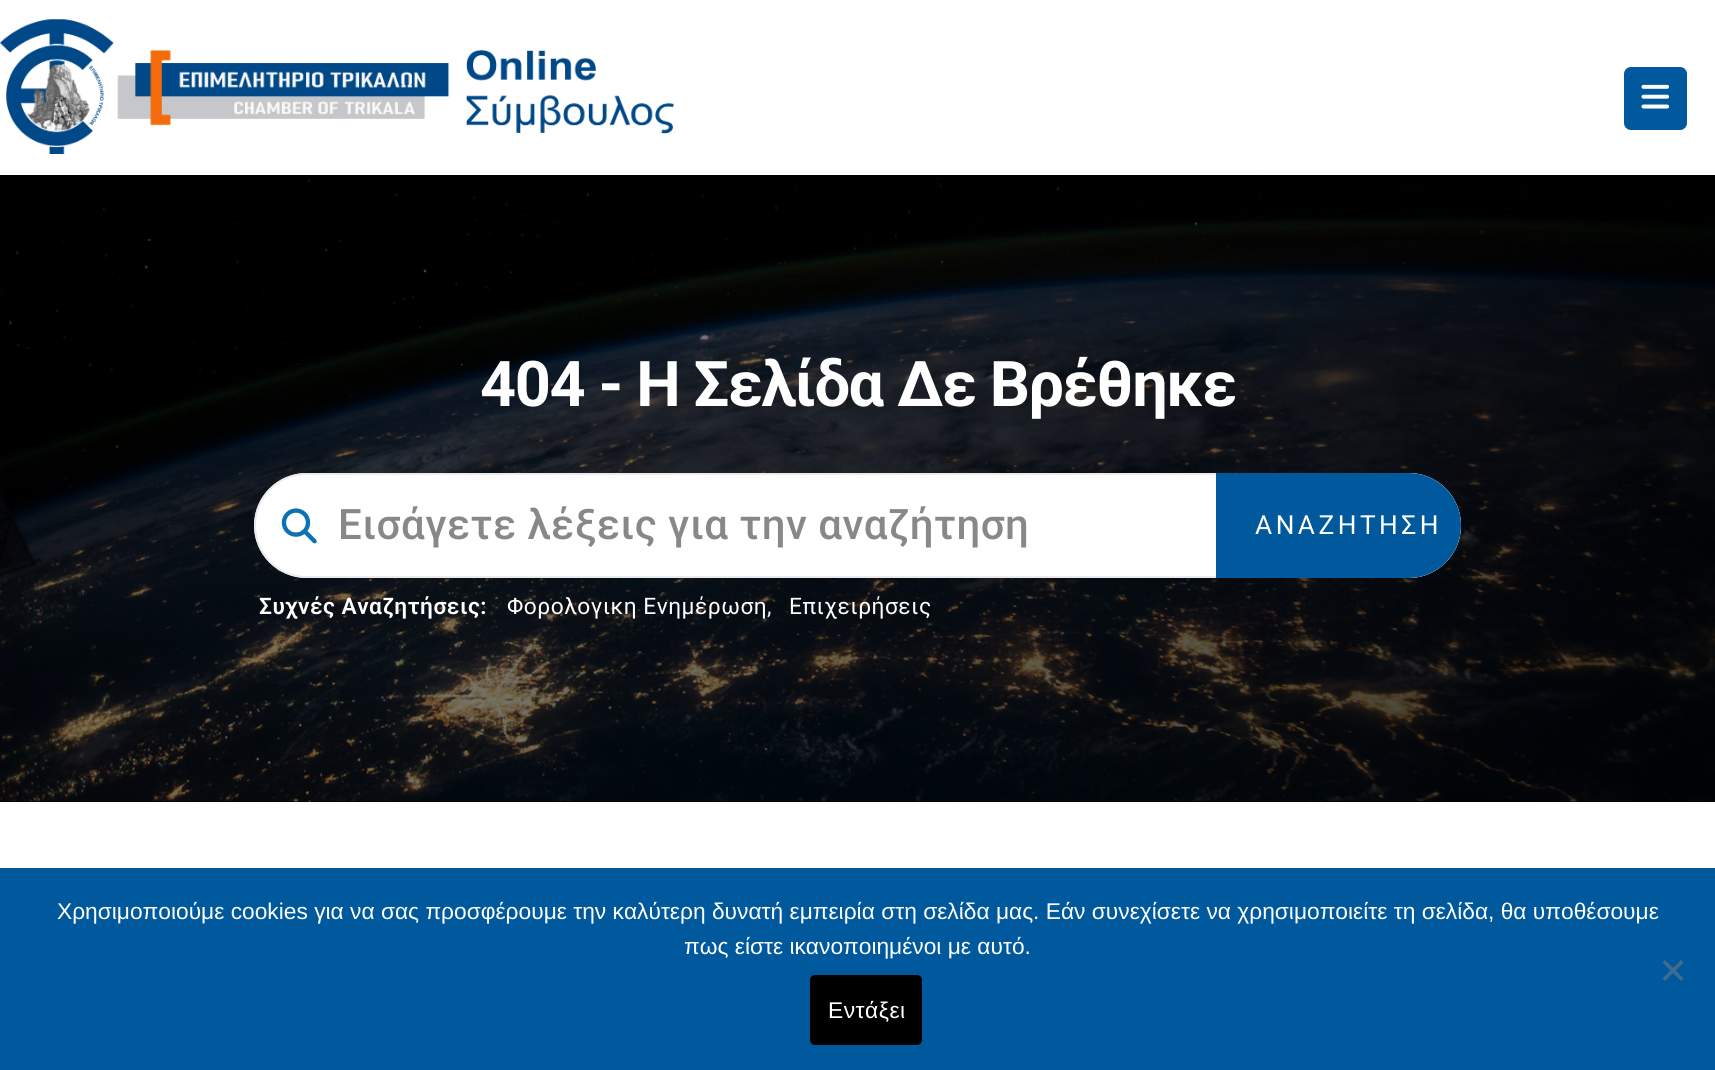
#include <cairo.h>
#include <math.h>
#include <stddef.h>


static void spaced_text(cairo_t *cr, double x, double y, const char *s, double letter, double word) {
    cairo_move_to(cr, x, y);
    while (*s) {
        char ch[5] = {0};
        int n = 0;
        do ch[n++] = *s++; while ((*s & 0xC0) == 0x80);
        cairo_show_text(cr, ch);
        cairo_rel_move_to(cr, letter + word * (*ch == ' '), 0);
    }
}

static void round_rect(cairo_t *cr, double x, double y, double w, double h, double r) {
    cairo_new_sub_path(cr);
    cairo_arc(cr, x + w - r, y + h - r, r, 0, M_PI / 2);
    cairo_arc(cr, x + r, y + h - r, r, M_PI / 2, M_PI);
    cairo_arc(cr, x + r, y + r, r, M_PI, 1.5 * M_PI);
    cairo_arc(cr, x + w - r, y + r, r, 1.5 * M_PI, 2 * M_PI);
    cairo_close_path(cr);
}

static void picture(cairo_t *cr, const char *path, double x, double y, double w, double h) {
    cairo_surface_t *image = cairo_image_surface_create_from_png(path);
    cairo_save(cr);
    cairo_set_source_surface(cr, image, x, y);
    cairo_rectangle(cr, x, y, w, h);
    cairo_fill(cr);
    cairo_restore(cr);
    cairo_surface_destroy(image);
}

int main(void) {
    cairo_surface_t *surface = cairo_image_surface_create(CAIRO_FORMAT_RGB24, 1715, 1070);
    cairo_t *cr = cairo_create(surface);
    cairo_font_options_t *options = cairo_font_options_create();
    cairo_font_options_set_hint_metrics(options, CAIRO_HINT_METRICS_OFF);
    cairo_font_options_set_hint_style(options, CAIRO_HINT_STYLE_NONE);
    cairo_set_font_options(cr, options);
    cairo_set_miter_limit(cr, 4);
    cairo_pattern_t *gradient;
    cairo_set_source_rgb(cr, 1, 1, 1);
    cairo_paint(cr);
    picture(cr, "img1.png", 0, 19, 674, 135);
    cairo_set_source_rgb(cr, 0, 0.349, 0.616);
    round_rect(cr, 1624, 67, 63, 63, 7);
    cairo_fill(cr);
    picture(cr, "img2.png", 1641, 84, 28, 25);
    cairo_set_source_rgb(cr, 0, 0, 0);
    cairo_rectangle(cr, 0, 801, 1715, 1);
    cairo_fill(cr);
    picture(cr, "img3.png", 0, 175, 1715, 627);
    gradient = cairo_pattern_create_linear(272, -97, 1443, 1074);
    cairo_pattern_add_color_stop_rgba(gradient, 0.35, 0, 0, 0, 0.51);
    cairo_pattern_add_color_stop_rgba(gradient, 1, 0, 0, 0, 0.77);
    cairo_set_source(cr, gradient);
    cairo_pattern_destroy(gradient);
    cairo_rectangle(cr, 0, 175, 1715, 627);
    cairo_fill(cr);
    cairo_select_font_face(cr, "Roboto", CAIRO_FONT_SLANT_NORMAL, CAIRO_FONT_WEIGHT_BOLD);
    cairo_set_font_size(cr, 63);
    cairo_set_source_rgb(cr, 1, 1, 1);
    spaced_text(cr, 480, 406, "404 - Η Σελίδα Δε Βρέθηκε", -1.4, 0);
    round_rect(cr, 254, 473, 1207, 105, 52.5);
    cairo_fill(cr);
    round_rect(cr, 255, 474, 1205, 103, 51.5);
    cairo_set_source_rgba(cr, 0.914, 0.914, 0.914, 0.9);
    cairo_stroke(cr);
    picture(cr, "img4.png", 281, 508, 36, 36);
    cairo_select_font_face(cr, "Roboto Medium", CAIRO_FONT_SLANT_NORMAL, CAIRO_FONT_WEIGHT_NORMAL);
    cairo_set_font_size(cr, 42);
    cairo_set_source_rgb(cr, 0.533, 0.533, 0.533);
    spaced_text(cr, 338, 539, "Εισάγετε λέξεις για την αναζήτηση", 0.5, 0);
    cairo_set_source_rgb(cr, 0, 0.349, 0.616);
    cairo_new_path(cr);
    cairo_move_to(cr, 1216, 473);
    cairo_line_to(cr, 1408.5, 473);
    cairo_curve_to(cr, 1437.5, 473, 1461, 496.5, 1461, 525.5);
    cairo_curve_to(cr, 1461, 554.5, 1437.5, 578, 1408.5, 578);
    cairo_line_to(cr, 1216, 578);
    cairo_close_path(cr);
    cairo_fill(cr);
    cairo_select_font_face(cr, "Roboto", CAIRO_FONT_SLANT_NORMAL, CAIRO_FONT_WEIGHT_NORMAL);
    cairo_set_font_size(cr, 26.25);
    cairo_set_source_rgb(cr, 1, 1, 1);
    spaced_text(cr, 1255, 534, "AΝΑΖΗΤΗΣΗ", 3.5, 0);
    cairo_select_font_face(cr, "Roboto SemiBold", CAIRO_FONT_SLANT_NORMAL, CAIRO_FONT_WEIGHT_NORMAL);
    cairo_set_font_size(cr, 22.75);
    spaced_text(cr, 259, 614, "Συχνές Αναζητήσεις:", 0.5, 0);
    cairo_select_font_face(cr, "Roboto", CAIRO_FONT_SLANT_NORMAL, CAIRO_FONT_WEIGHT_NORMAL);
    spaced_text(cr, 507, 614, "Φορολογικη Ενημέρωση", 0.5, 0);
    cairo_set_source_rgb(cr, 0.945, 0.945, 0.945);
    spaced_text(cr, 767, 614, ",", 0.5, 0);
    cairo_set_source_rgb(cr, 1, 1, 1);
    spaced_text(cr, 789, 614, "Επιχειρήσεις", 0.5, 0);
    cairo_set_source_rgb(cr, 0, 0.349, 0.616);
    cairo_rectangle(cr, 0, 868, 1715, 202);
    cairo_fill(cr);
    cairo_select_font_face(cr, "Liberation Sans", CAIRO_FONT_SLANT_NORMAL, CAIRO_FONT_WEIGHT_NORMAL);
    cairo_set_source_rgb(cr, 1, 1, 1);
    cairo_move_to(cr, 57, 919);
    cairo_show_text(cr, "Χρησιμοποιούμε cookies για να σας προσφέρουμε την καλύτερη δυνατή εμπειρία στη σελίδα μας. Εάν συνεχίσετε να χρησιμοποιείτε τη σελίδα, θα υποθέσουμε");
    cairo_move_to(cr, 684, 954);
    cairo_show_text(cr, "πως είστε ικανοποιημένοι με αυτό.");
    cairo_set_source_rgb(cr, 0.251, 0.427, 0.561);
    cairo_new_path(cr);
    cairo_move_to(cr, 1681, 960);
    cairo_line_to(cr, 1683.5, 962.5);
    cairo_line_to(cr, 1665, 981);
    cairo_line_to(cr, 1662.5, 978.5);
    cairo_close_path(cr);
    cairo_fill(cr);
    cairo_new_path(cr);
    cairo_move_to(cr, 1662.5, 962.5);
    cairo_line_to(cr, 1665, 960);
    cairo_line_to(cr, 1683.5, 978.5);
    cairo_line_to(cr, 1681, 981);
    cairo_close_path(cr);
    cairo_fill(cr);
    cairo_set_source_rgb(cr, 0, 0, 0);
    round_rect(cr, 810, 975, 112, 70, 5);
    cairo_fill(cr);
    cairo_set_source_rgb(cr, 1, 1, 1);
    spaced_text(cr, 828, 1018, "Εντάξει", 0.5, 0);
    cairo_surface_write_to_png(surface, "page.png");
    cairo_font_options_destroy(options);
    cairo_destroy(cr);
    cairo_surface_destroy(surface);
    return 0;
}
